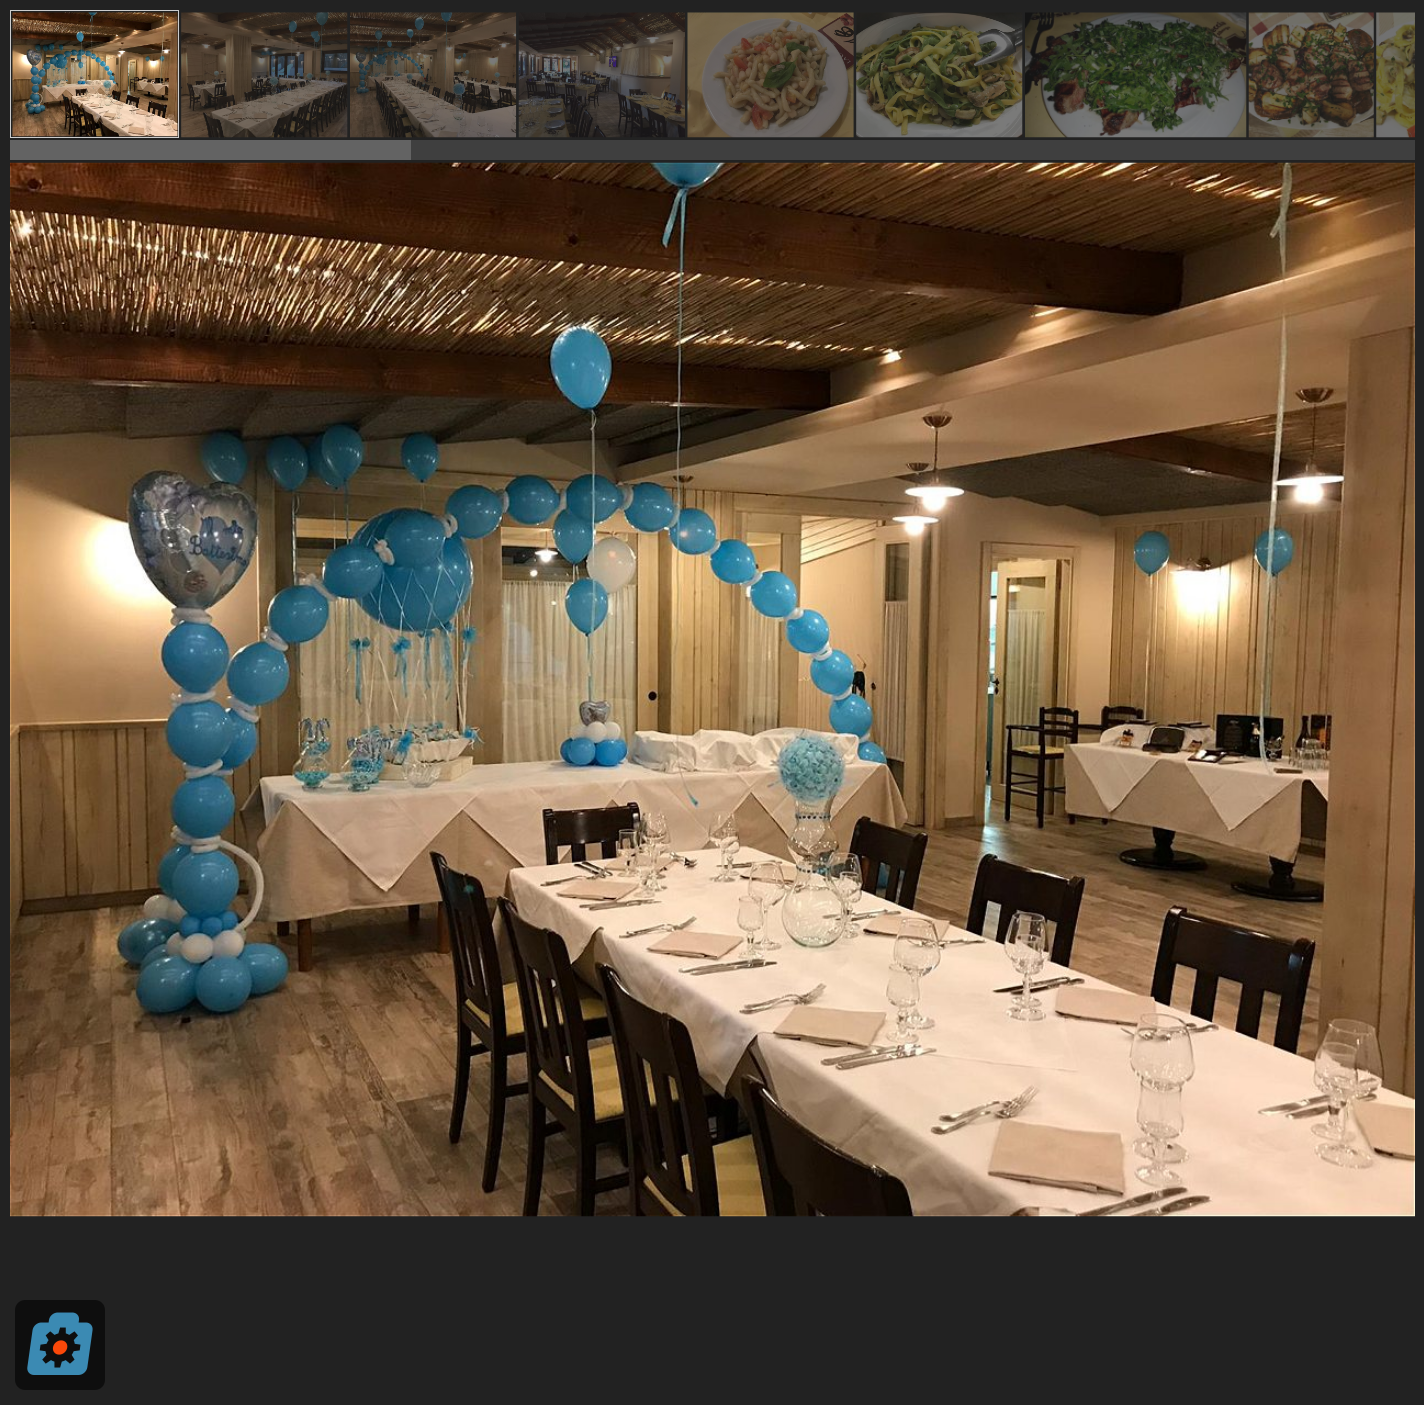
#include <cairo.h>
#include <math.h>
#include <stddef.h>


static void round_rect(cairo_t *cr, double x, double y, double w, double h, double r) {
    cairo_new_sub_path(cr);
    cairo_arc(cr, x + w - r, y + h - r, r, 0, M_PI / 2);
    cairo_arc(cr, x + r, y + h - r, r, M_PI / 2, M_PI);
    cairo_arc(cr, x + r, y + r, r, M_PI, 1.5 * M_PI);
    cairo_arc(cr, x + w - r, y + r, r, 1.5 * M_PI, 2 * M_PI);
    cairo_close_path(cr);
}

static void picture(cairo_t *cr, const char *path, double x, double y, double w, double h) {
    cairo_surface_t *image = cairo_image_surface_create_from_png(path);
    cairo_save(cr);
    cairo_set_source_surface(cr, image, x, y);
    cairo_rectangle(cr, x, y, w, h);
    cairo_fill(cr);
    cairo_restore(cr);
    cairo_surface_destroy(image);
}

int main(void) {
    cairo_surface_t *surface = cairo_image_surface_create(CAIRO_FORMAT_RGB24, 1424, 1405);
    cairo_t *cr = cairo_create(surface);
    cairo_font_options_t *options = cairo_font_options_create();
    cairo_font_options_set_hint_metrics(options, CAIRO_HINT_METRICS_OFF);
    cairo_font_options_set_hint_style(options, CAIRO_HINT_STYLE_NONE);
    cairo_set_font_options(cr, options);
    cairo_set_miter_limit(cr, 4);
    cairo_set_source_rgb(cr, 0.133, 0.133, 0.133);
    cairo_paint(cr);
    cairo_rectangle(cr, 10.5, 10.5, 168, 127);
    cairo_set_source_rgb(cr, 0.8, 0.8, 0.8);
    cairo_set_line_width(cr, 1);
    cairo_stroke(cr);
    picture(cr, "img1.png", 12, 12, 166, 125);
    picture(cr, "img2.png", 181, 12, 167, 126);
    picture(cr, "img3.png", 350, 12, 167, 126);
    picture(cr, "img4.png", 518, 12, 167, 126);
    picture(cr, "img5.png", 687, 12, 167, 126);
    picture(cr, "img6.png", 856, 12, 167, 126);
    picture(cr, "img7.png", 1025, 12, 222, 126);
    picture(cr, "img8.png", 1248, 12, 126, 126);
    picture(cr, "img9.png", 1376, 12, 39, 126);
    cairo_set_source_rgb(cr, 0.247, 0.247, 0.247);
    cairo_rectangle(cr, 411, 140, 1004, 20);
    cairo_fill(cr);
    cairo_set_source_rgb(cr, 0.388, 0.388, 0.388);
    cairo_rectangle(cr, 10, 140, 401, 20);
    cairo_fill(cr);
    picture(cr, "img10.png", 10, 162, 1405, 1055);
    cairo_set_source_rgb(cr, 0.055, 0.055, 0.055);
    round_rect(cr, 15, 1300, 90, 90, 10);
    cairo_fill(cr);
    picture(cr, "img11.png", 27, 1312, 66, 63);
    cairo_surface_write_to_png(surface, "page.png");
    cairo_font_options_destroy(options);
    cairo_destroy(cr);
    cairo_surface_destroy(surface);
    return 0;
}
